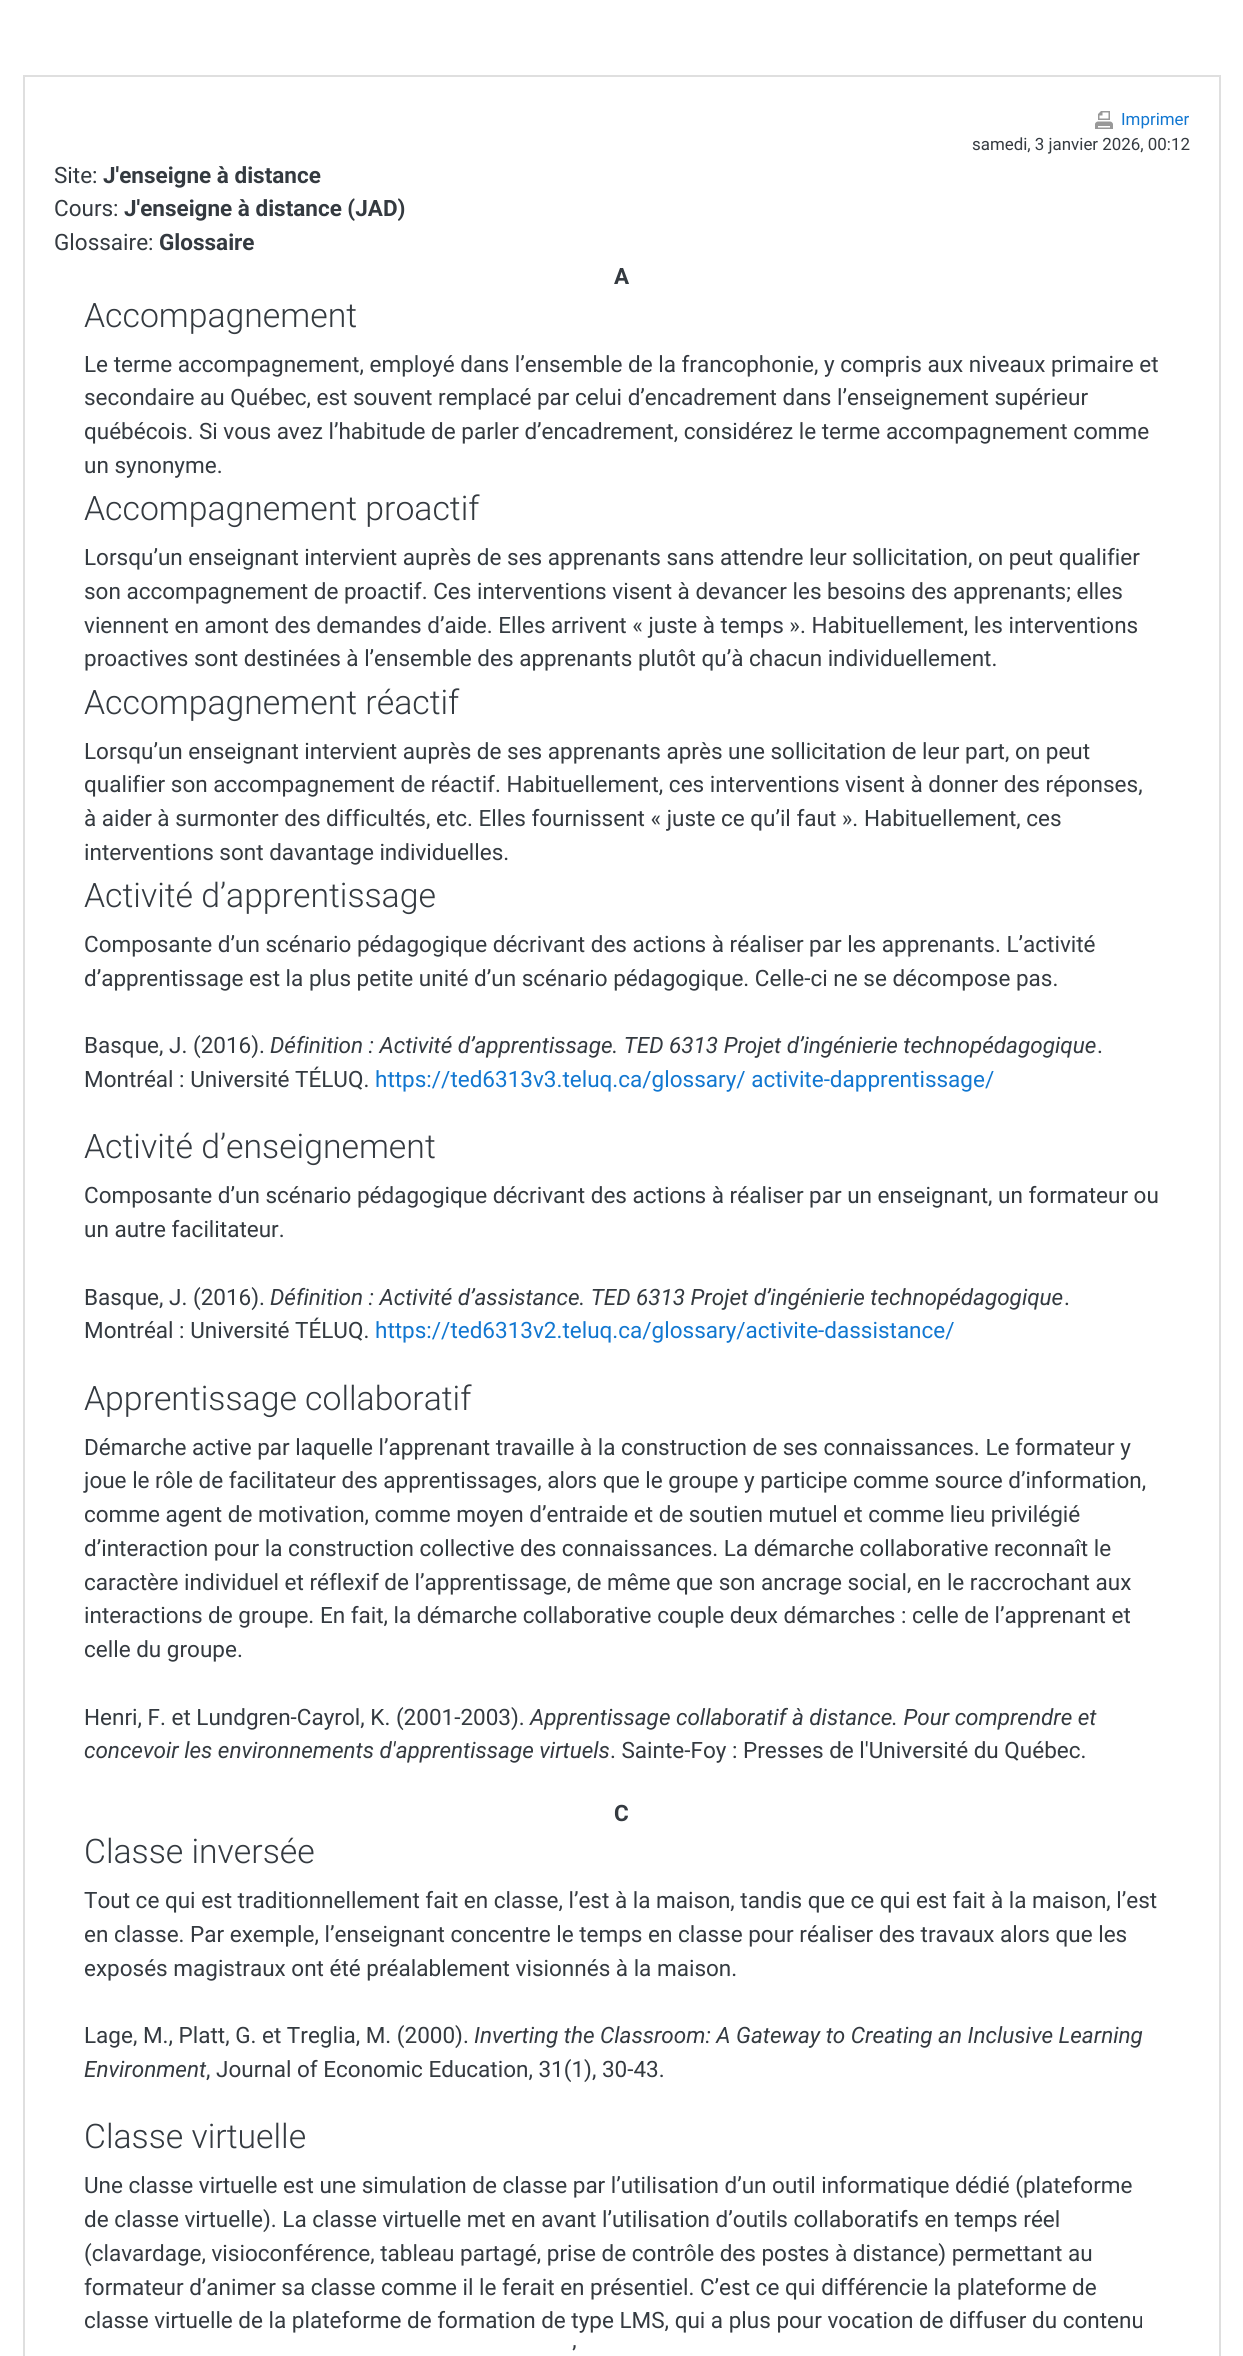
#include <cairo.h>
#include <math.h>
#include <stddef.h>


static void picture(cairo_t *cr, const char *path, double x, double y, double w, double h) {
    cairo_surface_t *image = cairo_image_surface_create_from_png(path);
    cairo_save(cr);
    cairo_set_source_surface(cr, image, x, y);
    cairo_rectangle(cr, x, y, w, h);
    cairo_fill(cr);
    cairo_restore(cr);
    cairo_surface_destroy(image);
}

int main(void) {
    cairo_surface_t *surface = cairo_image_surface_create(CAIRO_FORMAT_RGB24, 1243, 2356);
    cairo_t *cr = cairo_create(surface);
    cairo_font_options_t *options = cairo_font_options_create();
    cairo_font_options_set_hint_metrics(options, CAIRO_HINT_METRICS_OFF);
    cairo_font_options_set_hint_style(options, CAIRO_HINT_STYLE_NONE);
    cairo_set_font_options(cr, options);
    cairo_set_miter_limit(cr, 4);
    cairo_set_source_rgb(cr, 1, 1, 1);
    cairo_paint(cr);
    cairo_rectangle(cr, 24, 76, 1196, 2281);
    cairo_set_source_rgb(cr, 0.875, 0.875, 0.875);
    cairo_stroke(cr);
    picture(cr, "img1.png", 1095, 111, 18, 18);
    cairo_select_font_face(cr, "Roboto", CAIRO_FONT_SLANT_NORMAL, CAIRO_FONT_WEIGHT_NORMAL);
    cairo_set_font_size(cr, 16.9);
    cairo_set_source_rgb(cr, 0.067, 0.467, 0.82);
    cairo_move_to(cr, 1121, 125);
    cairo_show_text(cr, "Imprimer");
    cairo_set_source_rgb(cr, 0.204, 0.227, 0.251);
    cairo_move_to(cr, 972, 150);
    cairo_show_text(cr, "samedi, 3 janvier 2026, 00:12");
    cairo_set_font_size(cr, 22.5);
    cairo_move_to(cr, 54, 183);
    cairo_show_text(cr, "Site:");
    cairo_select_font_face(cr, "Roboto", CAIRO_FONT_SLANT_NORMAL, CAIRO_FONT_WEIGHT_BOLD);
    cairo_move_to(cr, 103, 183);
    cairo_show_text(cr, "J'enseigne à distance");
    cairo_select_font_face(cr, "Roboto", CAIRO_FONT_SLANT_NORMAL, CAIRO_FONT_WEIGHT_NORMAL);
    cairo_move_to(cr, 54, 216);
    cairo_show_text(cr, "Cours:");
    cairo_select_font_face(cr, "Roboto", CAIRO_FONT_SLANT_NORMAL, CAIRO_FONT_WEIGHT_BOLD);
    cairo_move_to(cr, 124, 216);
    cairo_show_text(cr, "J'enseigne à distance (JAD)");
    cairo_select_font_face(cr, "Roboto", CAIRO_FONT_SLANT_NORMAL, CAIRO_FONT_WEIGHT_NORMAL);
    cairo_move_to(cr, 54, 250);
    cairo_show_text(cr, "Glossaire:");
    cairo_select_font_face(cr, "Roboto", CAIRO_FONT_SLANT_NORMAL, CAIRO_FONT_WEIGHT_BOLD);
    cairo_move_to(cr, 159, 250);
    cairo_show_text(cr, "Glossaire");
    cairo_move_to(cr, 614, 284);
    cairo_show_text(cr, "A");
    cairo_select_font_face(cr, "Roboto Light", CAIRO_FONT_SLANT_NORMAL, CAIRO_FONT_WEIGHT_NORMAL);
    cairo_set_font_size(cr, 33.75);
    cairo_move_to(cr, 84, 327);
    cairo_show_text(cr, "Accompagnement");
    cairo_select_font_face(cr, "Roboto", CAIRO_FONT_SLANT_NORMAL, CAIRO_FONT_WEIGHT_NORMAL);
    cairo_set_font_size(cr, 22.5);
    cairo_move_to(cr, 84, 372);
    cairo_show_text(cr, "Le terme accompagnement, employé dans l’ensemble de la francophonie, y compris aux niveaux primaire et");
    cairo_move_to(cr, 84, 405);
    cairo_show_text(cr, "secondaire au Québec, est souvent remplacé par celui d’encadrement dans l’enseignement supérieur");
    cairo_move_to(cr, 84, 439);
    cairo_show_text(cr, "québécois. Si vous avez l’habitude de parler d’encadrement, considérez le terme accompagnement comme");
    cairo_move_to(cr, 84, 473);
    cairo_show_text(cr, "un synonyme.");
    cairo_select_font_face(cr, "Roboto Light", CAIRO_FONT_SLANT_NORMAL, CAIRO_FONT_WEIGHT_NORMAL);
    cairo_set_font_size(cr, 33.75);
    cairo_move_to(cr, 84, 520);
    cairo_show_text(cr, "Accompagnement proactif");
    cairo_select_font_face(cr, "Roboto", CAIRO_FONT_SLANT_NORMAL, CAIRO_FONT_WEIGHT_NORMAL);
    cairo_set_font_size(cr, 22.5);
    cairo_move_to(cr, 84, 565);
    cairo_show_text(cr, "Lorsqu’un enseignant intervient auprès de ses apprenants sans attendre leur sollicitation, on peut qualifier");
    cairo_move_to(cr, 84, 599);
    cairo_show_text(cr, "son accompagnement de proactif. Ces interventions visent à devancer les besoins des apprenants; elles");
    cairo_move_to(cr, 84, 633);
    cairo_show_text(cr, "viennent en amont des demandes d’aide. Elles arrivent « juste à temps ». Habituellement, les interventions");
    cairo_move_to(cr, 84, 666);
    cairo_show_text(cr, "proactives sont destinées à l’ensemble des apprenants plutôt qu’à chacun individuellement.");
    cairo_select_font_face(cr, "Roboto Light", CAIRO_FONT_SLANT_NORMAL, CAIRO_FONT_WEIGHT_NORMAL);
    cairo_set_font_size(cr, 33.75);
    cairo_move_to(cr, 84, 714);
    cairo_show_text(cr, "Accompagnement réactif");
    cairo_select_font_face(cr, "Roboto", CAIRO_FONT_SLANT_NORMAL, CAIRO_FONT_WEIGHT_NORMAL);
    cairo_set_font_size(cr, 22.5);
    cairo_move_to(cr, 84, 759);
    cairo_show_text(cr, "Lorsqu’un enseignant intervient auprès de ses apprenants après une sollicitation de leur part, on peut");
    cairo_move_to(cr, 84, 792);
    cairo_show_text(cr, "qualifier son accompagnement de réactif. Habituellement, ces interventions visent à donner des réponses,");
    cairo_move_to(cr, 84, 826);
    cairo_show_text(cr, "à aider à surmonter des difficultés, etc. Elles fournissent « juste ce qu’il faut ». Habituellement, ces");
    cairo_move_to(cr, 84, 860);
    cairo_show_text(cr, "interventions sont davantage individuelles.");
    cairo_select_font_face(cr, "Roboto Light", CAIRO_FONT_SLANT_NORMAL, CAIRO_FONT_WEIGHT_NORMAL);
    cairo_set_font_size(cr, 33.75);
    cairo_move_to(cr, 84, 907);
    cairo_show_text(cr, "Activité d’apprentissage");
    cairo_select_font_face(cr, "Roboto", CAIRO_FONT_SLANT_NORMAL, CAIRO_FONT_WEIGHT_NORMAL);
    cairo_set_font_size(cr, 22.5);
    cairo_move_to(cr, 84, 952);
    cairo_show_text(cr, "Composante d’un scénario pédagogique décrivant des actions à réaliser par les apprenants. L’activité");
    cairo_move_to(cr, 84, 986);
    cairo_show_text(cr, "d’apprentissage est la plus petite unité d’un scénario pédagogique. Celle-ci ne se décompose pas.");
    cairo_move_to(cr, 84, 1053);
    cairo_show_text(cr, "Basque, J. (2016).");
    cairo_select_font_face(cr, "Roboto", CAIRO_FONT_SLANT_ITALIC, CAIRO_FONT_WEIGHT_NORMAL);
    cairo_move_to(cr, 270, 1053);
    cairo_show_text(cr, "Définition : Activité d’apprentissage. TED 6313 Projet d’ingénierie technopédagogique");
    cairo_select_font_face(cr, "Roboto", CAIRO_FONT_SLANT_NORMAL, CAIRO_FONT_WEIGHT_NORMAL);
    cairo_move_to(cr, 1097, 1053);
    cairo_show_text(cr, ".");
    cairo_move_to(cr, 84, 1087);
    cairo_show_text(cr, "Montréal : Université TÉLUQ.");
    cairo_set_source_rgb(cr, 0.067, 0.467, 0.82);
    cairo_move_to(cr, 375, 1087);
    cairo_show_text(cr, "https://ted6313v3.teluq.ca/glossary/ activite-dapprentissage/");
    cairo_select_font_face(cr, "Roboto Light", CAIRO_FONT_SLANT_NORMAL, CAIRO_FONT_WEIGHT_NORMAL);
    cairo_set_font_size(cr, 33.75);
    cairo_set_source_rgb(cr, 0.204, 0.227, 0.251);
    cairo_move_to(cr, 84, 1158);
    cairo_show_text(cr, "Activité d’enseignement");
    cairo_select_font_face(cr, "Roboto", CAIRO_FONT_SLANT_NORMAL, CAIRO_FONT_WEIGHT_NORMAL);
    cairo_set_font_size(cr, 22.5);
    cairo_move_to(cr, 84, 1203);
    cairo_show_text(cr, "Composante d’un scénario pédagogique décrivant des actions à réaliser par un enseignant, un formateur ou");
    cairo_move_to(cr, 84, 1237);
    cairo_show_text(cr, "un autre facilitateur.");
    cairo_move_to(cr, 84, 1305);
    cairo_show_text(cr, "Basque, J. (2016).");
    cairo_select_font_face(cr, "Roboto", CAIRO_FONT_SLANT_ITALIC, CAIRO_FONT_WEIGHT_NORMAL);
    cairo_move_to(cr, 270, 1305);
    cairo_show_text(cr, "Définition : Activité d’assistance. TED 6313 Projet d’ingénierie technopédagogique");
    cairo_select_font_face(cr, "Roboto", CAIRO_FONT_SLANT_NORMAL, CAIRO_FONT_WEIGHT_NORMAL);
    cairo_move_to(cr, 1064, 1305);
    cairo_show_text(cr, ".");
    cairo_move_to(cr, 84, 1338);
    cairo_show_text(cr, "Montréal : Université TÉLUQ.");
    cairo_set_source_rgb(cr, 0.067, 0.467, 0.82);
    cairo_move_to(cr, 375, 1338);
    cairo_show_text(cr, "https://ted6313v2.teluq.ca/glossary/activite-dassistance/");
    cairo_select_font_face(cr, "Roboto Light", CAIRO_FONT_SLANT_NORMAL, CAIRO_FONT_WEIGHT_NORMAL);
    cairo_set_font_size(cr, 33.75);
    cairo_set_source_rgb(cr, 0.204, 0.227, 0.251);
    cairo_move_to(cr, 84, 1410);
    cairo_show_text(cr, "Apprentissage collaboratif");
    cairo_select_font_face(cr, "Roboto", CAIRO_FONT_SLANT_NORMAL, CAIRO_FONT_WEIGHT_NORMAL);
    cairo_set_font_size(cr, 22.5);
    cairo_move_to(cr, 84, 1455);
    cairo_show_text(cr, "Démarche active par laquelle l’apprenant travaille à la construction de ses connaissances. Le formateur y");
    cairo_move_to(cr, 84, 1488);
    cairo_show_text(cr, "joue le rôle de facilitateur des apprentissages, alors que le groupe y participe comme source d’information,");
    cairo_move_to(cr, 84, 1522);
    cairo_show_text(cr, "comme agent de motivation, comme moyen d’entraide et de soutien mutuel et comme lieu privilégié");
    cairo_move_to(cr, 84, 1556);
    cairo_show_text(cr, "d’interaction pour la construction collective des connaissances. La démarche collaborative reconnaît le");
    cairo_move_to(cr, 84, 1590);
    cairo_show_text(cr, "caractère individuel et réflexif de l’apprentissage, de même que son ancrage social, en le raccrochant aux");
    cairo_move_to(cr, 84, 1623);
    cairo_show_text(cr, "interactions de groupe. En fait, la démarche collaborative couple deux démarches : celle de l’apprenant et");
    cairo_move_to(cr, 84, 1657);
    cairo_show_text(cr, "celle du groupe.");
    cairo_move_to(cr, 84, 1725);
    cairo_show_text(cr, "Henri, F. et Lundgren-Cayrol, K. (2001-2003).");
    cairo_select_font_face(cr, "Roboto", CAIRO_FONT_SLANT_ITALIC, CAIRO_FONT_WEIGHT_NORMAL);
    cairo_move_to(cr, 530, 1725);
    cairo_show_text(cr, "Apprentissage collaboratif à distance. Pour comprendre et");
    cairo_move_to(cr, 84, 1758);
    cairo_show_text(cr, "concevoir les environnements d'apprentissage virtuels");
    cairo_select_font_face(cr, "Roboto", CAIRO_FONT_SLANT_NORMAL, CAIRO_FONT_WEIGHT_NORMAL);
    cairo_move_to(cr, 610, 1758);
    cairo_show_text(cr, ". Sainte-Foy : Presses de l'Université du Québec.");
    cairo_select_font_face(cr, "Roboto", CAIRO_FONT_SLANT_NORMAL, CAIRO_FONT_WEIGHT_BOLD);
    cairo_move_to(cr, 614, 1821);
    cairo_show_text(cr, "C");
    cairo_select_font_face(cr, "Roboto Light", CAIRO_FONT_SLANT_NORMAL, CAIRO_FONT_WEIGHT_NORMAL);
    cairo_set_font_size(cr, 33.75);
    cairo_move_to(cr, 84, 1863);
    cairo_show_text(cr, "Classe inversée");
    cairo_select_font_face(cr, "Roboto", CAIRO_FONT_SLANT_NORMAL, CAIRO_FONT_WEIGHT_NORMAL);
    cairo_set_font_size(cr, 22.5);
    cairo_move_to(cr, 84, 1908);
    cairo_show_text(cr, "Tout ce qui est traditionnellement fait en classe, l’est à la maison, tandis que ce qui est fait à la maison, l’est");
    cairo_move_to(cr, 84, 1942);
    cairo_show_text(cr, "en classe. Par exemple, l’enseignant concentre le temps en classe pour réaliser des travaux alors que les");
    cairo_move_to(cr, 84, 1976);
    cairo_show_text(cr, "exposés magistraux ont été préalablement visionnés à la maison.");
    cairo_move_to(cr, 84, 2043);
    cairo_show_text(cr, "Lage, M., Platt, G. et Treglia, M. (2000).");
    cairo_select_font_face(cr, "Roboto", CAIRO_FONT_SLANT_ITALIC, CAIRO_FONT_WEIGHT_NORMAL);
    cairo_move_to(cr, 474, 2043);
    cairo_show_text(cr, "Inverting the Classroom: A Gateway to Creating an Inclusive Learning");
    cairo_move_to(cr, 84, 2077);
    cairo_show_text(cr, "Environment");
    cairo_select_font_face(cr, "Roboto", CAIRO_FONT_SLANT_NORMAL, CAIRO_FONT_WEIGHT_NORMAL);
    cairo_move_to(cr, 206, 2077);
    cairo_show_text(cr, ", Journal of Economic Education, 31(1), 30-43.");
    cairo_select_font_face(cr, "Roboto Light", CAIRO_FONT_SLANT_NORMAL, CAIRO_FONT_WEIGHT_NORMAL);
    cairo_set_font_size(cr, 33.75);
    cairo_move_to(cr, 84, 2148);
    cairo_show_text(cr, "Classe virtuelle");
    cairo_select_font_face(cr, "Roboto", CAIRO_FONT_SLANT_NORMAL, CAIRO_FONT_WEIGHT_NORMAL);
    cairo_set_font_size(cr, 22.5);
    cairo_move_to(cr, 84, 2193);
    cairo_show_text(cr, "Une classe virtuelle est une simulation de classe par l’utilisation d’un outil informatique dédié (plateforme");
    cairo_move_to(cr, 84, 2227);
    cairo_show_text(cr, "de classe virtuelle). La classe virtuelle met en avant l’utilisation d’outils collaboratifs en temps réel");
    cairo_move_to(cr, 84, 2261);
    cairo_show_text(cr, "(clavardage, visioconférence, tableau partagé, prise de contrôle des postes à distance) permettant au");
    cairo_move_to(cr, 84, 2295);
    cairo_show_text(cr, "formateur d’animer sa classe comme il le ferait en présentiel. C’est ce qui différencie la plateforme de");
    cairo_move_to(cr, 84, 2328);
    cairo_show_text(cr, "classe virtuelle de la plateforme de formation de type LMS, qui a plus pour vocation de diffuser du contenu");
    cairo_move_to(cr, 572, 2362);
    cairo_show_text(cr, "’");
    cairo_surface_write_to_png(surface, "page.png");
    cairo_font_options_destroy(options);
    cairo_destroy(cr);
    cairo_surface_destroy(surface);
    return 0;
}
